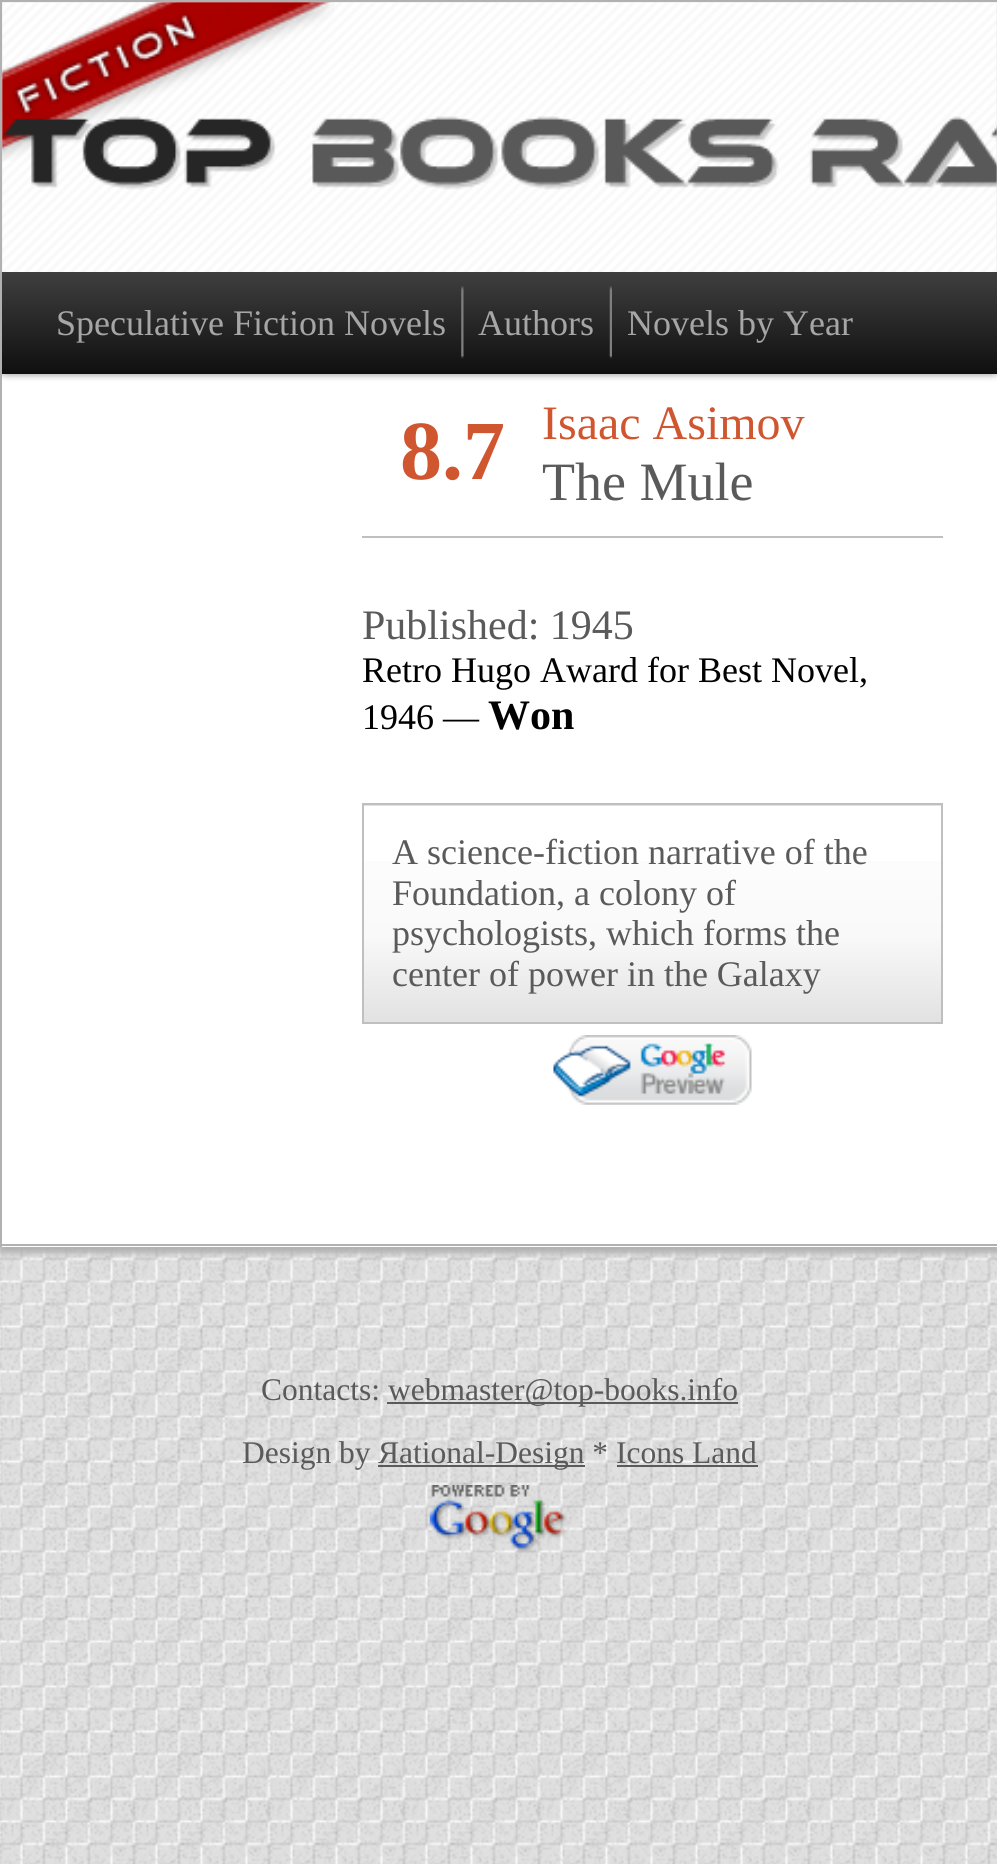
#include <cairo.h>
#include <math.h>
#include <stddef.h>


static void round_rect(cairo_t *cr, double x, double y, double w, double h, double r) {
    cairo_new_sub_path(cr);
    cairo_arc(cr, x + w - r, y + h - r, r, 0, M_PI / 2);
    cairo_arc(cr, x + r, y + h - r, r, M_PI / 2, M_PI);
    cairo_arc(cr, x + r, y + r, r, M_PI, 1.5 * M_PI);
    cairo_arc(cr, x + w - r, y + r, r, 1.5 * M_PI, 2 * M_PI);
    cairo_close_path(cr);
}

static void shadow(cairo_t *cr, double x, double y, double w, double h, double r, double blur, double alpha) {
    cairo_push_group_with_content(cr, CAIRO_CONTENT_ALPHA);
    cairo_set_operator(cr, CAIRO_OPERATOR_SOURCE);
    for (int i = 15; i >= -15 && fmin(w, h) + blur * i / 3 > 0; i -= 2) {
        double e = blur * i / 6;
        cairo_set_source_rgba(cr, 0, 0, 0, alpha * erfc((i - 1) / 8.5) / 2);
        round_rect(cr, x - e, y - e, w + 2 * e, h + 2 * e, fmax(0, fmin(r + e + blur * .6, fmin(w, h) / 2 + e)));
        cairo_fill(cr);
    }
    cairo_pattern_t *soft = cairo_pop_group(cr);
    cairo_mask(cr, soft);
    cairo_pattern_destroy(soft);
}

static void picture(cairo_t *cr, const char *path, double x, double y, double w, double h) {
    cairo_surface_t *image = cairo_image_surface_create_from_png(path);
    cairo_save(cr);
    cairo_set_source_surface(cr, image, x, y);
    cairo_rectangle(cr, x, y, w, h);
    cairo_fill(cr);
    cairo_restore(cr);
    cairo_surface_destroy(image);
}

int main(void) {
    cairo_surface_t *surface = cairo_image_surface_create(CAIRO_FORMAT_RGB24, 997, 1864);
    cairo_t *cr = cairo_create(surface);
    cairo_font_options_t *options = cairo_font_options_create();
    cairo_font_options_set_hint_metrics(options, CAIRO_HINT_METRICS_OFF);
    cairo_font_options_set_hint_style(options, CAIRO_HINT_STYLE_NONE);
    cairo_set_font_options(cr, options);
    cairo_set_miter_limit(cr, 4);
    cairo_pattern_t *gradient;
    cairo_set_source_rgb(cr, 1, 1, 1);
    cairo_paint(cr);
    picture(cr, "img1.png", 0, 1247, 997, 617);
    cairo_set_source_rgb(cr, 0.694, 0.694, 0.694);
    shadow(cr, 0, 380, 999, 873, 0, 3.5, 1);
    shadow(cr, 7, 374, 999, 873, 0, 3.5, 1);
    shadow(cr, -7, 374, 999, 873, 0, 3.5, 1);
    cairo_set_source_rgb(cr, 1, 1, 1);
    cairo_rectangle(cr, 2, 374, 995, 873);
    cairo_fill(cr);
    cairo_set_source_rgb(cr, 0.694, 0.694, 0.694);
    cairo_rectangle(cr, 0, 1244, 997, 2);
    cairo_fill(cr);
    cairo_rectangle(cr, 0, 374, 2, 873);
    cairo_fill(cr);
    cairo_set_source_rgb(cr, 0.694, 0.694, 0.694);
    shadow(cr, 7, 0, 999, 374, 0, 3.5, 1);
    shadow(cr, -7, 0, 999, 374, 0, 3.5, 1);
    cairo_set_source_rgb(cr, 0.918, 0.918, 0.918);
    cairo_rectangle(cr, 2, 2, 995, 270);
    cairo_fill(cr);
    cairo_set_source_rgb(cr, 0.694, 0.694, 0.694);
    cairo_rectangle(cr, 0, 0, 997, 2);
    cairo_fill(cr);
    cairo_rectangle(cr, 0, 0, 2, 374);
    cairo_fill(cr);
    picture(cr, "img2.png", 2, 2, 995, 270);
    picture(cr, "img3.png", 2, 2, 333, 159);
    picture(cr, "img4.png", 2, 116, 995, 74);
    gradient = cairo_pattern_create_linear(500, 272, 500, 374);
    cairo_pattern_add_color_stop_rgba(gradient, 0, 0.247, 0.247, 0.247, 1);
    cairo_pattern_add_color_stop_rgba(gradient, 1, 0.059, 0.059, 0.059, 1);
    cairo_set_source(cr, gradient);
    cairo_pattern_destroy(gradient);
    cairo_rectangle(cr, 2, 272, 995, 102);
    cairo_fill(cr);
    cairo_select_font_face(cr, "Liberation Serif", CAIRO_FONT_SLANT_NORMAL, CAIRO_FONT_WEIGHT_NORMAL);
    cairo_set_font_size(cr, 36);
    cairo_set_source_rgb(cr, 0.651, 0.651, 0.651);
    cairo_move_to(cr, 56, 335);
    cairo_show_text(cr, "Speculative Fiction Novels");
    picture(cr, "img5.png", 461, 286, 3, 73);
    cairo_move_to(cr, 478, 335);
    cairo_show_text(cr, "Authors");
    picture(cr, "img6.png", 609, 286, 3, 73);
    cairo_move_to(cr, 627, 335);
    cairo_show_text(cr, "Novels by Year");
    cairo_set_source_rgb(cr, 0.749, 0.749, 0.749);
    cairo_rectangle(cr, 362, 536, 581, 2);
    cairo_fill(cr);
    cairo_select_font_face(cr, "Liberation Serif", CAIRO_FONT_SLANT_NORMAL, CAIRO_FONT_WEIGHT_BOLD);
    cairo_set_font_size(cr, 84);
    cairo_set_source_rgb(cr, 0.816, 0.337, 0.188);
    cairo_move_to(cr, 400, 479);
    cairo_show_text(cr, "8.7");
    cairo_select_font_face(cr, "Liberation Serif", CAIRO_FONT_SLANT_NORMAL, CAIRO_FONT_WEIGHT_NORMAL);
    cairo_set_font_size(cr, 48);
    cairo_move_to(cr, 542, 439);
    cairo_show_text(cr, "Isaac Asimov");
    cairo_set_font_size(cr, 54);
    cairo_set_source_rgb(cr, 0.353, 0.353, 0.353);
    cairo_move_to(cr, 542, 500);
    cairo_show_text(cr, "The Mule");
    cairo_set_font_size(cr, 42);
    cairo_move_to(cr, 362, 639);
    cairo_show_text(cr, "Published: 1945");
    cairo_set_font_size(cr, 36);
    cairo_set_source_rgb(cr, 0, 0, 0);
    cairo_move_to(cr, 362, 682);
    cairo_show_text(cr, "Retro Hugo Award for Best Novel,");
    cairo_move_to(cr, 362, 729);
    cairo_show_text(cr, "1946 —");
    cairo_select_font_face(cr, "Liberation Serif", CAIRO_FONT_SLANT_NORMAL, CAIRO_FONT_WEIGHT_BOLD);
    cairo_set_font_size(cr, 42);
    cairo_move_to(cr, 488, 729);
    cairo_show_text(cr, "Won");
    gradient = cairo_pattern_create_linear(653, 590, 653, 806);
    cairo_pattern_add_color_stop_rgba(gradient, 0.01, 1, 1, 1, 1);
    cairo_pattern_add_color_stop_rgba(gradient, 0.6, 0.976, 0.976, 0.976, 1);
    cairo_pattern_add_color_stop_rgba(gradient, 1, 0.886, 0.886, 0.886, 1);
    cairo_set_source(cr, gradient);
    cairo_pattern_destroy(gradient);
    cairo_rectangle(cr, 362, 805, 581, 1);
    cairo_fill(cr);
    gradient = cairo_pattern_create_linear(653, 806, 653, 1022);
    cairo_pattern_add_color_stop_rgba(gradient, 0.01, 1, 1, 1, 1);
    cairo_pattern_add_color_stop_rgba(gradient, 0.6, 0.976, 0.976, 0.976, 1);
    cairo_pattern_add_color_stop_rgba(gradient, 1, 0.886, 0.886, 0.886, 1);
    cairo_set_source(cr, gradient);
    cairo_pattern_destroy(gradient);
    cairo_rectangle(cr, 364, 861, 577, 161);
    cairo_fill(cr);
    cairo_rectangle(cr, 363, 804, 579, 219);
    cairo_set_source_rgb(cr, 0.749, 0.749, 0.749);
    cairo_stroke(cr);
    cairo_select_font_face(cr, "Liberation Serif", CAIRO_FONT_SLANT_NORMAL, CAIRO_FONT_WEIGHT_NORMAL);
    cairo_set_font_size(cr, 36);
    cairo_set_source_rgb(cr, 0.353, 0.353, 0.353);
    cairo_move_to(cr, 392, 864);
    cairo_show_text(cr, "A science-fiction narrative of the");
    cairo_move_to(cr, 392, 905);
    cairo_show_text(cr, "Foundation, a colony of");
    cairo_move_to(cr, 392, 945);
    cairo_show_text(cr, "psychologists, which forms the");
    cairo_move_to(cr, 392, 986);
    cairo_show_text(cr, "center of power in the Galaxy");
    picture(cr, "img7.png", 553, 1035, 199, 70);
    cairo_set_font_size(cr, 31.5);
    cairo_move_to(cr, 261, 1400);
    cairo_show_text(cr, "Contacts:");
    cairo_rectangle(cr, 387, 1402, 351, 2);
    cairo_fill(cr);
    cairo_move_to(cr, 388, 1400);
    cairo_show_text(cr, "webmaster@top-books.info");
    cairo_move_to(cr, 242, 1463);
    cairo_show_text(cr, "Design by");
    cairo_rectangle(cr, 378, 1465, 207, 2);
    cairo_fill(cr);
    cairo_move_to(cr, 378, 1463);
    cairo_show_text(cr, "Яational-Design * Icons Land");
    cairo_rectangle(cr, 617, 1465, 141, 2);
    cairo_fill(cr);
    picture(cr, "img8.png", 429, 1485, 139, 68);
    cairo_surface_write_to_png(surface, "page.png");
    cairo_font_options_destroy(options);
    cairo_destroy(cr);
    cairo_surface_destroy(surface);
    return 0;
}
